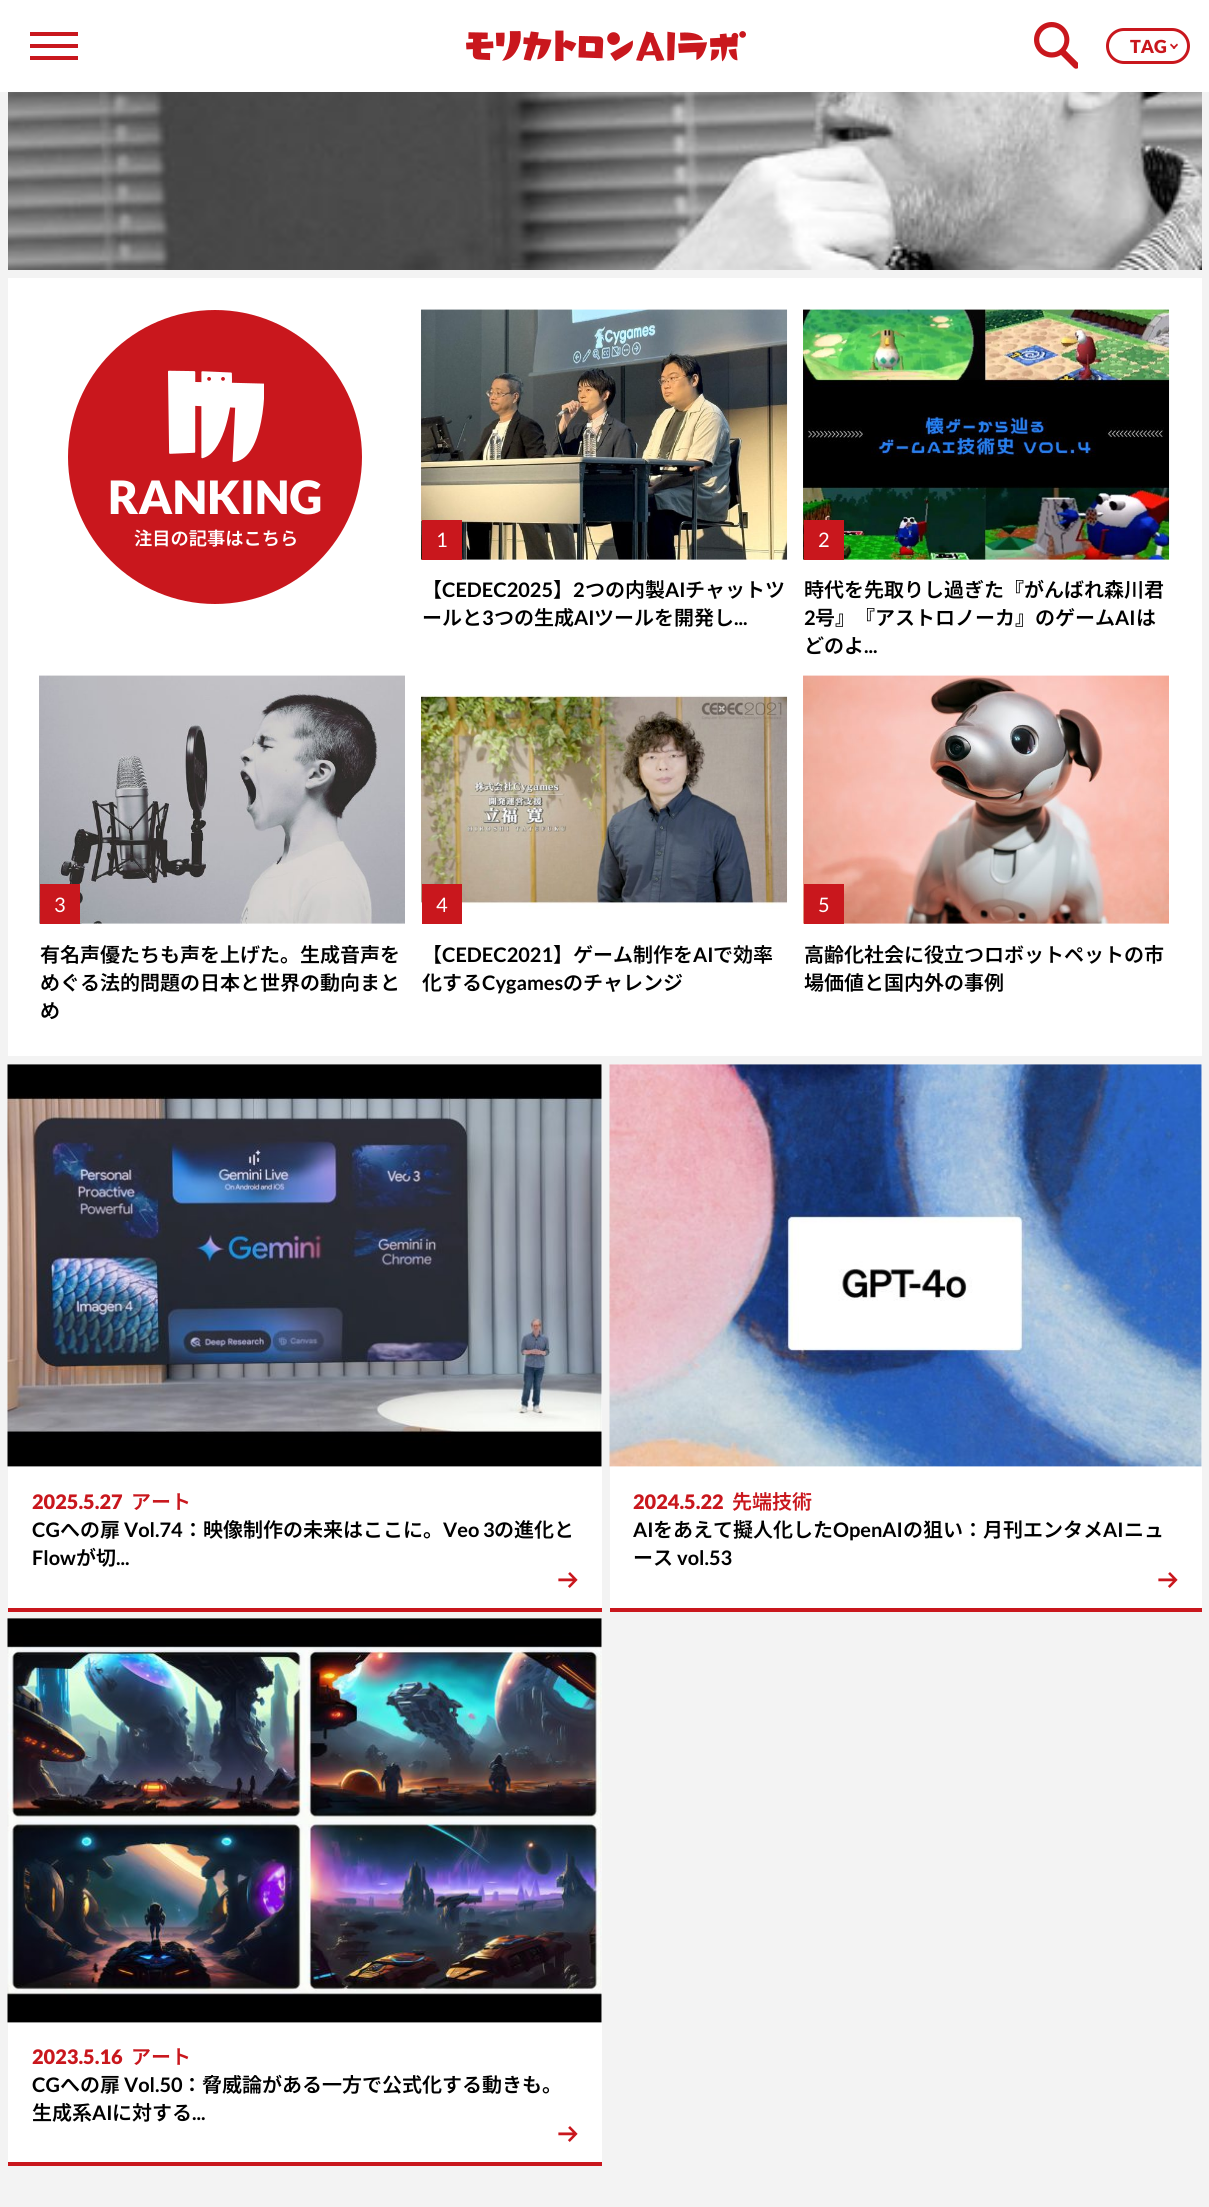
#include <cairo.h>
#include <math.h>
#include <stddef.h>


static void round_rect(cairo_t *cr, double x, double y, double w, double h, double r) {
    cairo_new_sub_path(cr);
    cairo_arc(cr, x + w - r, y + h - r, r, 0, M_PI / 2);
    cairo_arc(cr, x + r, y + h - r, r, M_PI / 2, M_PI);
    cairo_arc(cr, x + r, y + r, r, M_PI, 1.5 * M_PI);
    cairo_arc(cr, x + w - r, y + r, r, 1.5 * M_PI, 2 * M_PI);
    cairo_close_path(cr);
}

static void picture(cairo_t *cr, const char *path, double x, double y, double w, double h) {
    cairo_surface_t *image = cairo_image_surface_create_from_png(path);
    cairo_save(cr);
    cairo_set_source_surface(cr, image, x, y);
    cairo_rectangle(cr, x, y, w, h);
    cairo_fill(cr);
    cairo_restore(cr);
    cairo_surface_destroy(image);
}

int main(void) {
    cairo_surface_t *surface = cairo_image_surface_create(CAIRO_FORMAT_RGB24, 1209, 2207);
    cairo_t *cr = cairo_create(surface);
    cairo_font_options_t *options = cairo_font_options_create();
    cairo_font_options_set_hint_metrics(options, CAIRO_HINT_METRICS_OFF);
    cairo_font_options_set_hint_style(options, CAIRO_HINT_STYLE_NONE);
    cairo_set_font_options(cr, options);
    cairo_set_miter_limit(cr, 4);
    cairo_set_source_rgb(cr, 0.953, 0.953, 0.953);
    cairo_paint(cr);
    cairo_set_source_rgb(cr, 1, 1, 1);
    cairo_rectangle(cr, 0, 0, 1209, 92);
    cairo_fill(cr);
    picture(cr, "img1.png", 466, 30, 280, 32);
    cairo_set_source_rgb(cr, 0.788, 0.09, 0.114);
    cairo_rectangle(cr, 30, 32, 48, 4);
    cairo_fill(cr);
    cairo_rectangle(cr, 30, 44, 48, 4);
    cairo_fill(cr);
    cairo_rectangle(cr, 30, 56, 48, 4);
    cairo_fill(cr);
    picture(cr, "img2.png", 1034, 22, 44, 47);
    round_rect(cr, 1107.5, 29.5, 81, 33, 16.5);
    cairo_set_line_width(cr, 3);
    cairo_stroke(cr);
    cairo_select_font_face(cr, "Lato Black", CAIRO_FONT_SLANT_NORMAL, CAIRO_FONT_WEIGHT_NORMAL);
    cairo_set_font_size(cr, 18);
    cairo_move_to(cr, 1130, 53);
    cairo_show_text(cr, "TAG");
    cairo_new_path(cr);
    cairo_move_to(cr, 1177, 43.5);
    cairo_line_to(cr, 1178, 45);
    cairo_line_to(cr, 1174, 49);
    cairo_line_to(cr, 1172.5, 48);
    cairo_close_path(cr);
    cairo_fill(cr);
    cairo_new_path(cr);
    cairo_move_to(cr, 1171, 43.5);
    cairo_line_to(cr, 1175.5, 48);
    cairo_line_to(cr, 1174, 49);
    cairo_line_to(cr, 1170, 45);
    cairo_close_path(cr);
    cairo_fill(cr);
    picture(cr, "img3.png", 8, 92, 1194, 178);
    cairo_set_source_rgb(cr, 1, 1, 1);
    cairo_rectangle(cr, 8, 278, 1194, 778);
    cairo_fill(cr);
    cairo_set_source_rgb(cr, 0.788, 0.09, 0.114);
    cairo_arc(cr, 215, 457, 147, 0, 2 * M_PI);
    cairo_fill(cr);
    picture(cr, "img4.png", 168, 370, 96, 92);
    cairo_set_font_size(cr, 46);
    cairo_set_source_rgb(cr, 1, 1, 1);
    cairo_move_to(cr, 108, 514);
    cairo_show_text(cr, "RANKING");
    cairo_select_font_face(cr, "Noto Sans JP SemiBold", CAIRO_FONT_SLANT_NORMAL, CAIRO_FONT_WEIGHT_NORMAL);
    cairo_set_font_size(cr, 18.25);
    cairo_move_to(cr, 134, 545);
    cairo_show_text(cr, "注目の記事はこちら");
    picture(cr, "img5.png", 421, 309, 367, 251);
    cairo_set_source_rgb(cr, 0.788, 0.09, 0.114);
    cairo_rectangle(cr, 422, 520, 40, 40);
    cairo_fill(cr);
    cairo_select_font_face(cr, "Lato", CAIRO_FONT_SLANT_NORMAL, CAIRO_FONT_WEIGHT_NORMAL);
    cairo_set_font_size(cr, 20);
    cairo_set_source_rgb(cr, 1, 1, 1);
    cairo_move_to(cr, 436, 547);
    cairo_show_text(cr, "1");
    cairo_select_font_face(cr, "Noto Sans JP SemiBold", CAIRO_FONT_SLANT_NORMAL, CAIRO_FONT_WEIGHT_NORMAL);
    cairo_set_source_rgb(cr, 0, 0, 0);
    cairo_move_to(cr, 422, 597);
    cairo_show_text(cr, "【");
    cairo_select_font_face(cr, "Lato", CAIRO_FONT_SLANT_NORMAL, CAIRO_FONT_WEIGHT_BOLD);
    cairo_move_to(cr, 442, 597);
    cairo_show_text(cr, "CEDEC2025");
    cairo_select_font_face(cr, "Noto Sans JP SemiBold", CAIRO_FONT_SLANT_NORMAL, CAIRO_FONT_WEIGHT_NORMAL);
    cairo_move_to(cr, 553, 597);
    cairo_show_text(cr, "】");
    cairo_select_font_face(cr, "Lato", CAIRO_FONT_SLANT_NORMAL, CAIRO_FONT_WEIGHT_BOLD);
    cairo_move_to(cr, 573, 597);
    cairo_show_text(cr, "2");
    cairo_select_font_face(cr, "Noto Sans JP SemiBold", CAIRO_FONT_SLANT_NORMAL, CAIRO_FONT_WEIGHT_NORMAL);
    cairo_move_to(cr, 585, 597);
    cairo_show_text(cr, "つの内製");
    cairo_select_font_face(cr, "Lato", CAIRO_FONT_SLANT_NORMAL, CAIRO_FONT_WEIGHT_BOLD);
    cairo_move_to(cr, 665, 597);
    cairo_show_text(cr, "AI");
    cairo_select_font_face(cr, "Noto Sans JP SemiBold", CAIRO_FONT_SLANT_NORMAL, CAIRO_FONT_WEIGHT_NORMAL);
    cairo_move_to(cr, 685, 597);
    cairo_show_text(cr, "チャットツ");
    cairo_move_to(cr, 422, 625);
    cairo_show_text(cr, "ールと");
    cairo_select_font_face(cr, "Lato", CAIRO_FONT_SLANT_NORMAL, CAIRO_FONT_WEIGHT_BOLD);
    cairo_move_to(cr, 482, 625);
    cairo_show_text(cr, "3");
    cairo_select_font_face(cr, "Noto Sans JP SemiBold", CAIRO_FONT_SLANT_NORMAL, CAIRO_FONT_WEIGHT_NORMAL);
    cairo_move_to(cr, 494, 625);
    cairo_show_text(cr, "つの生成");
    cairo_select_font_face(cr, "Lato", CAIRO_FONT_SLANT_NORMAL, CAIRO_FONT_WEIGHT_BOLD);
    cairo_move_to(cr, 574, 625);
    cairo_show_text(cr, "AI");
    cairo_select_font_face(cr, "Noto Sans JP SemiBold", CAIRO_FONT_SLANT_NORMAL, CAIRO_FONT_WEIGHT_NORMAL);
    cairo_move_to(cr, 594, 625);
    cairo_show_text(cr, "ツールを開発し");
    cairo_select_font_face(cr, "Lato", CAIRO_FONT_SLANT_NORMAL, CAIRO_FONT_WEIGHT_BOLD);
    cairo_move_to(cr, 734, 625);
    cairo_show_text(cr, "...");
    picture(cr, "img6.png", 803, 309, 367, 251);
    cairo_set_source_rgb(cr, 0.788, 0.09, 0.114);
    cairo_rectangle(cr, 804, 520, 40, 40);
    cairo_fill(cr);
    cairo_select_font_face(cr, "Lato", CAIRO_FONT_SLANT_NORMAL, CAIRO_FONT_WEIGHT_NORMAL);
    cairo_set_source_rgb(cr, 1, 1, 1);
    cairo_move_to(cr, 818, 547);
    cairo_show_text(cr, "2");
    cairo_select_font_face(cr, "Noto Sans JP SemiBold", CAIRO_FONT_SLANT_NORMAL, CAIRO_FONT_WEIGHT_NORMAL);
    cairo_set_source_rgb(cr, 0, 0, 0);
    cairo_move_to(cr, 804, 597);
    cairo_show_text(cr, "時代を先取りし過ぎた『がんばれ森川君");
    cairo_select_font_face(cr, "Lato", CAIRO_FONT_SLANT_NORMAL, CAIRO_FONT_WEIGHT_BOLD);
    cairo_move_to(cr, 804, 625);
    cairo_show_text(cr, "2");
    cairo_select_font_face(cr, "Noto Sans JP SemiBold", CAIRO_FONT_SLANT_NORMAL, CAIRO_FONT_WEIGHT_NORMAL);
    cairo_move_to(cr, 815, 625);
    cairo_show_text(cr, "号』『アストロノーカ』のゲーム");
    cairo_select_font_face(cr, "Lato", CAIRO_FONT_SLANT_NORMAL, CAIRO_FONT_WEIGHT_BOLD);
    cairo_move_to(cr, 1115, 625);
    cairo_show_text(cr, "AI");
    cairo_select_font_face(cr, "Noto Sans JP SemiBold", CAIRO_FONT_SLANT_NORMAL, CAIRO_FONT_WEIGHT_NORMAL);
    cairo_move_to(cr, 1136, 625);
    cairo_show_text(cr, "は");
    cairo_move_to(cr, 804, 653);
    cairo_show_text(cr, "どのよ");
    cairo_select_font_face(cr, "Lato", CAIRO_FONT_SLANT_NORMAL, CAIRO_FONT_WEIGHT_BOLD);
    cairo_move_to(cr, 864, 653);
    cairo_show_text(cr, "...");
    picture(cr, "img7.png", 39, 675, 366, 249);
    cairo_set_source_rgb(cr, 0.788, 0.09, 0.114);
    cairo_rectangle(cr, 40, 884, 40, 40);
    cairo_fill(cr);
    cairo_select_font_face(cr, "Lato", CAIRO_FONT_SLANT_NORMAL, CAIRO_FONT_WEIGHT_NORMAL);
    cairo_set_source_rgb(cr, 1, 1, 1);
    cairo_move_to(cr, 54, 912);
    cairo_show_text(cr, "3");
    cairo_select_font_face(cr, "Noto Sans JP SemiBold", CAIRO_FONT_SLANT_NORMAL, CAIRO_FONT_WEIGHT_NORMAL);
    cairo_set_source_rgb(cr, 0, 0, 0);
    cairo_move_to(cr, 40, 962);
    cairo_show_text(cr, "有名声優たちも声を上げた。生成音声を");
    cairo_move_to(cr, 40, 990);
    cairo_show_text(cr, "めぐる法的問題の日本と世界の動向まと");
    cairo_move_to(cr, 40, 1018);
    cairo_show_text(cr, "め");
    picture(cr, "img8.png", 421, 695, 367, 214);
    cairo_set_source_rgb(cr, 0.788, 0.09, 0.114);
    cairo_rectangle(cr, 422, 884, 40, 40);
    cairo_fill(cr);
    cairo_select_font_face(cr, "Lato", CAIRO_FONT_SLANT_NORMAL, CAIRO_FONT_WEIGHT_NORMAL);
    cairo_set_source_rgb(cr, 1, 1, 1);
    cairo_move_to(cr, 436, 912);
    cairo_show_text(cr, "4");
    cairo_select_font_face(cr, "Noto Sans JP SemiBold", CAIRO_FONT_SLANT_NORMAL, CAIRO_FONT_WEIGHT_NORMAL);
    cairo_set_source_rgb(cr, 0, 0, 0);
    cairo_move_to(cr, 422, 962);
    cairo_show_text(cr, "【");
    cairo_select_font_face(cr, "Lato", CAIRO_FONT_SLANT_NORMAL, CAIRO_FONT_WEIGHT_BOLD);
    cairo_move_to(cr, 442, 962);
    cairo_show_text(cr, "CEDEC2021");
    cairo_select_font_face(cr, "Noto Sans JP SemiBold", CAIRO_FONT_SLANT_NORMAL, CAIRO_FONT_WEIGHT_NORMAL);
    cairo_move_to(cr, 553, 962);
    cairo_show_text(cr, "】ゲーム制作を");
    cairo_select_font_face(cr, "Lato", CAIRO_FONT_SLANT_NORMAL, CAIRO_FONT_WEIGHT_BOLD);
    cairo_move_to(cr, 693, 962);
    cairo_show_text(cr, "AI");
    cairo_select_font_face(cr, "Noto Sans JP SemiBold", CAIRO_FONT_SLANT_NORMAL, CAIRO_FONT_WEIGHT_NORMAL);
    cairo_move_to(cr, 713, 962);
    cairo_show_text(cr, "で効率");
    cairo_move_to(cr, 422, 990);
    cairo_show_text(cr, "化する");
    cairo_select_font_face(cr, "Lato", CAIRO_FONT_SLANT_NORMAL, CAIRO_FONT_WEIGHT_BOLD);
    cairo_move_to(cr, 482, 990);
    cairo_show_text(cr, "Cygames");
    cairo_select_font_face(cr, "Noto Sans JP SemiBold", CAIRO_FONT_SLANT_NORMAL, CAIRO_FONT_WEIGHT_NORMAL);
    cairo_move_to(cr, 563, 990);
    cairo_show_text(cr, "のチャレンジ");
    picture(cr, "img9.png", 803, 675, 366, 249);
    cairo_set_source_rgb(cr, 0.788, 0.09, 0.114);
    cairo_rectangle(cr, 804, 884, 40, 40);
    cairo_fill(cr);
    cairo_select_font_face(cr, "Lato", CAIRO_FONT_SLANT_NORMAL, CAIRO_FONT_WEIGHT_NORMAL);
    cairo_set_source_rgb(cr, 1, 1, 1);
    cairo_move_to(cr, 818, 912);
    cairo_show_text(cr, "5");
    cairo_select_font_face(cr, "Noto Sans JP SemiBold", CAIRO_FONT_SLANT_NORMAL, CAIRO_FONT_WEIGHT_NORMAL);
    cairo_set_source_rgb(cr, 0, 0, 0);
    cairo_move_to(cr, 804, 962);
    cairo_show_text(cr, "高齢化社会に役立つロボットペットの市");
    cairo_move_to(cr, 804, 990);
    cairo_show_text(cr, "場価値と国内外の事例");
    cairo_set_source_rgb(cr, 1, 1, 1);
    cairo_rectangle(cr, 8, 1064, 594, 544);
    cairo_fill(cr);
    cairo_set_source_rgb(cr, 0.788, 0.09, 0.114);
    cairo_rectangle(cr, 8, 1608, 594, 4);
    cairo_fill(cr);
    picture(cr, "img10.png", 7, 1064, 595, 403);
    cairo_select_font_face(cr, "Lato Black", CAIRO_FONT_SLANT_NORMAL, CAIRO_FONT_WEIGHT_NORMAL);
    cairo_move_to(cr, 32, 1509);
    cairo_show_text(cr, "2025.5.27");
    cairo_select_font_face(cr, "Noto Sans JP SemiBold", CAIRO_FONT_SLANT_NORMAL, CAIRO_FONT_WEIGHT_NORMAL);
    cairo_move_to(cr, 131, 1509);
    cairo_show_text(cr, "アート");
    cairo_select_font_face(cr, "Lato", CAIRO_FONT_SLANT_NORMAL, CAIRO_FONT_WEIGHT_BOLD);
    cairo_set_source_rgb(cr, 0, 0, 0);
    cairo_move_to(cr, 32, 1537);
    cairo_show_text(cr, "CG");
    cairo_select_font_face(cr, "Noto Sans JP SemiBold", CAIRO_FONT_SLANT_NORMAL, CAIRO_FONT_WEIGHT_NORMAL);
    cairo_move_to(cr, 60, 1537);
    cairo_show_text(cr, "への扉");
    cairo_select_font_face(cr, "Lato", CAIRO_FONT_SLANT_NORMAL, CAIRO_FONT_WEIGHT_BOLD);
    cairo_move_to(cr, 124, 1537);
    cairo_show_text(cr, "Vol.74");
    cairo_select_font_face(cr, "Noto Sans JP SemiBold", CAIRO_FONT_SLANT_NORMAL, CAIRO_FONT_WEIGHT_NORMAL);
    cairo_move_to(cr, 183, 1537);
    cairo_show_text(cr, "：映像制作の未来はここに。");
    cairo_select_font_face(cr, "Lato", CAIRO_FONT_SLANT_NORMAL, CAIRO_FONT_WEIGHT_BOLD);
    cairo_move_to(cr, 443, 1537);
    cairo_show_text(cr, "Veo 3");
    cairo_select_font_face(cr, "Noto Sans JP SemiBold", CAIRO_FONT_SLANT_NORMAL, CAIRO_FONT_WEIGHT_NORMAL);
    cairo_move_to(cr, 494, 1537);
    cairo_show_text(cr, "の進化と");
    cairo_select_font_face(cr, "Lato", CAIRO_FONT_SLANT_NORMAL, CAIRO_FONT_WEIGHT_BOLD);
    cairo_move_to(cr, 32, 1565);
    cairo_show_text(cr, "Flow");
    cairo_select_font_face(cr, "Noto Sans JP SemiBold", CAIRO_FONT_SLANT_NORMAL, CAIRO_FONT_WEIGHT_NORMAL);
    cairo_move_to(cr, 76, 1565);
    cairo_show_text(cr, "が切");
    cairo_select_font_face(cr, "Lato", CAIRO_FONT_SLANT_NORMAL, CAIRO_FONT_WEIGHT_BOLD);
    cairo_move_to(cr, 116, 1565);
    cairo_show_text(cr, "...");
    picture(cr, "img11.png", 558, 1572, 20, 16);
    cairo_set_source_rgb(cr, 1, 1, 1);
    cairo_rectangle(cr, 610, 1064, 592, 544);
    cairo_fill(cr);
    cairo_set_source_rgb(cr, 0.788, 0.09, 0.114);
    cairo_rectangle(cr, 610, 1608, 592, 4);
    cairo_fill(cr);
    picture(cr, "img12.png", 609, 1064, 593, 403);
    cairo_select_font_face(cr, "Lato Black", CAIRO_FONT_SLANT_NORMAL, CAIRO_FONT_WEIGHT_NORMAL);
    cairo_move_to(cr, 633, 1509);
    cairo_show_text(cr, "2024.5.22");
    cairo_select_font_face(cr, "Noto Sans JP SemiBold", CAIRO_FONT_SLANT_NORMAL, CAIRO_FONT_WEIGHT_NORMAL);
    cairo_move_to(cr, 732, 1509);
    cairo_show_text(cr, "先端技術");
    cairo_select_font_face(cr, "Lato", CAIRO_FONT_SLANT_NORMAL, CAIRO_FONT_WEIGHT_BOLD);
    cairo_set_source_rgb(cr, 0, 0, 0);
    cairo_move_to(cr, 633, 1537);
    cairo_show_text(cr, "AI");
    cairo_select_font_face(cr, "Noto Sans JP SemiBold", CAIRO_FONT_SLANT_NORMAL, CAIRO_FONT_WEIGHT_NORMAL);
    cairo_move_to(cr, 653, 1537);
    cairo_show_text(cr, "をあえて擬人化した");
    cairo_select_font_face(cr, "Lato", CAIRO_FONT_SLANT_NORMAL, CAIRO_FONT_WEIGHT_BOLD);
    cairo_move_to(cr, 833, 1537);
    cairo_show_text(cr, "OpenAI");
    cairo_select_font_face(cr, "Noto Sans JP SemiBold", CAIRO_FONT_SLANT_NORMAL, CAIRO_FONT_WEIGHT_NORMAL);
    cairo_move_to(cr, 903, 1537);
    cairo_show_text(cr, "の狙い：月刊エンタメ");
    cairo_select_font_face(cr, "Lato", CAIRO_FONT_SLANT_NORMAL, CAIRO_FONT_WEIGHT_BOLD);
    cairo_move_to(cr, 1103, 1537);
    cairo_show_text(cr, "AI");
    cairo_select_font_face(cr, "Noto Sans JP SemiBold", CAIRO_FONT_SLANT_NORMAL, CAIRO_FONT_WEIGHT_NORMAL);
    cairo_move_to(cr, 1124, 1537);
    cairo_show_text(cr, "ニュ");
    cairo_move_to(cr, 633, 1565);
    cairo_show_text(cr, "ース");
    cairo_select_font_face(cr, "Lato", CAIRO_FONT_SLANT_NORMAL, CAIRO_FONT_WEIGHT_BOLD);
    cairo_move_to(cr, 677, 1565);
    cairo_show_text(cr, "vol.53");
    picture(cr, "img11.png", 1158, 1572, 20, 16);
    cairo_set_source_rgb(cr, 1, 1, 1);
    cairo_rectangle(cr, 8, 1620, 594, 542);
    cairo_fill(cr);
    cairo_set_source_rgb(cr, 0.788, 0.09, 0.114);
    cairo_rectangle(cr, 8, 2162, 594, 4);
    cairo_fill(cr);
    picture(cr, "img13.png", 7, 1618, 595, 405);
    cairo_select_font_face(cr, "Lato Black", CAIRO_FONT_SLANT_NORMAL, CAIRO_FONT_WEIGHT_NORMAL);
    cairo_move_to(cr, 32, 2064);
    cairo_show_text(cr, "2023.5.16");
    cairo_select_font_face(cr, "Noto Sans JP SemiBold", CAIRO_FONT_SLANT_NORMAL, CAIRO_FONT_WEIGHT_NORMAL);
    cairo_move_to(cr, 131, 2064);
    cairo_show_text(cr, "アート");
    cairo_select_font_face(cr, "Lato", CAIRO_FONT_SLANT_NORMAL, CAIRO_FONT_WEIGHT_BOLD);
    cairo_set_source_rgb(cr, 0, 0, 0);
    cairo_move_to(cr, 32, 2092);
    cairo_show_text(cr, "CG");
    cairo_select_font_face(cr, "Noto Sans JP SemiBold", CAIRO_FONT_SLANT_NORMAL, CAIRO_FONT_WEIGHT_NORMAL);
    cairo_move_to(cr, 60, 2092);
    cairo_show_text(cr, "への扉");
    cairo_select_font_face(cr, "Lato", CAIRO_FONT_SLANT_NORMAL, CAIRO_FONT_WEIGHT_BOLD);
    cairo_move_to(cr, 124, 2092);
    cairo_show_text(cr, "Vol.50");
    cairo_select_font_face(cr, "Noto Sans JP SemiBold", CAIRO_FONT_SLANT_NORMAL, CAIRO_FONT_WEIGHT_NORMAL);
    cairo_move_to(cr, 182, 2092);
    cairo_show_text(cr, "：脅威論がある一方で公式化する動きも。");
    cairo_move_to(cr, 32, 2120);
    cairo_show_text(cr, "生成系");
    cairo_select_font_face(cr, "Lato", CAIRO_FONT_SLANT_NORMAL, CAIRO_FONT_WEIGHT_BOLD);
    cairo_move_to(cr, 92, 2120);
    cairo_show_text(cr, "AI");
    cairo_select_font_face(cr, "Noto Sans JP SemiBold", CAIRO_FONT_SLANT_NORMAL, CAIRO_FONT_WEIGHT_NORMAL);
    cairo_move_to(cr, 112, 2120);
    cairo_show_text(cr, "に対する");
    cairo_select_font_face(cr, "Lato", CAIRO_FONT_SLANT_NORMAL, CAIRO_FONT_WEIGHT_BOLD);
    cairo_move_to(cr, 192, 2120);
    cairo_show_text(cr, "...");
    picture(cr, "img11.png", 558, 2126, 20, 16);
    cairo_surface_write_to_png(surface, "page.png");
    cairo_font_options_destroy(options);
    cairo_destroy(cr);
    cairo_surface_destroy(surface);
    return 0;
}
